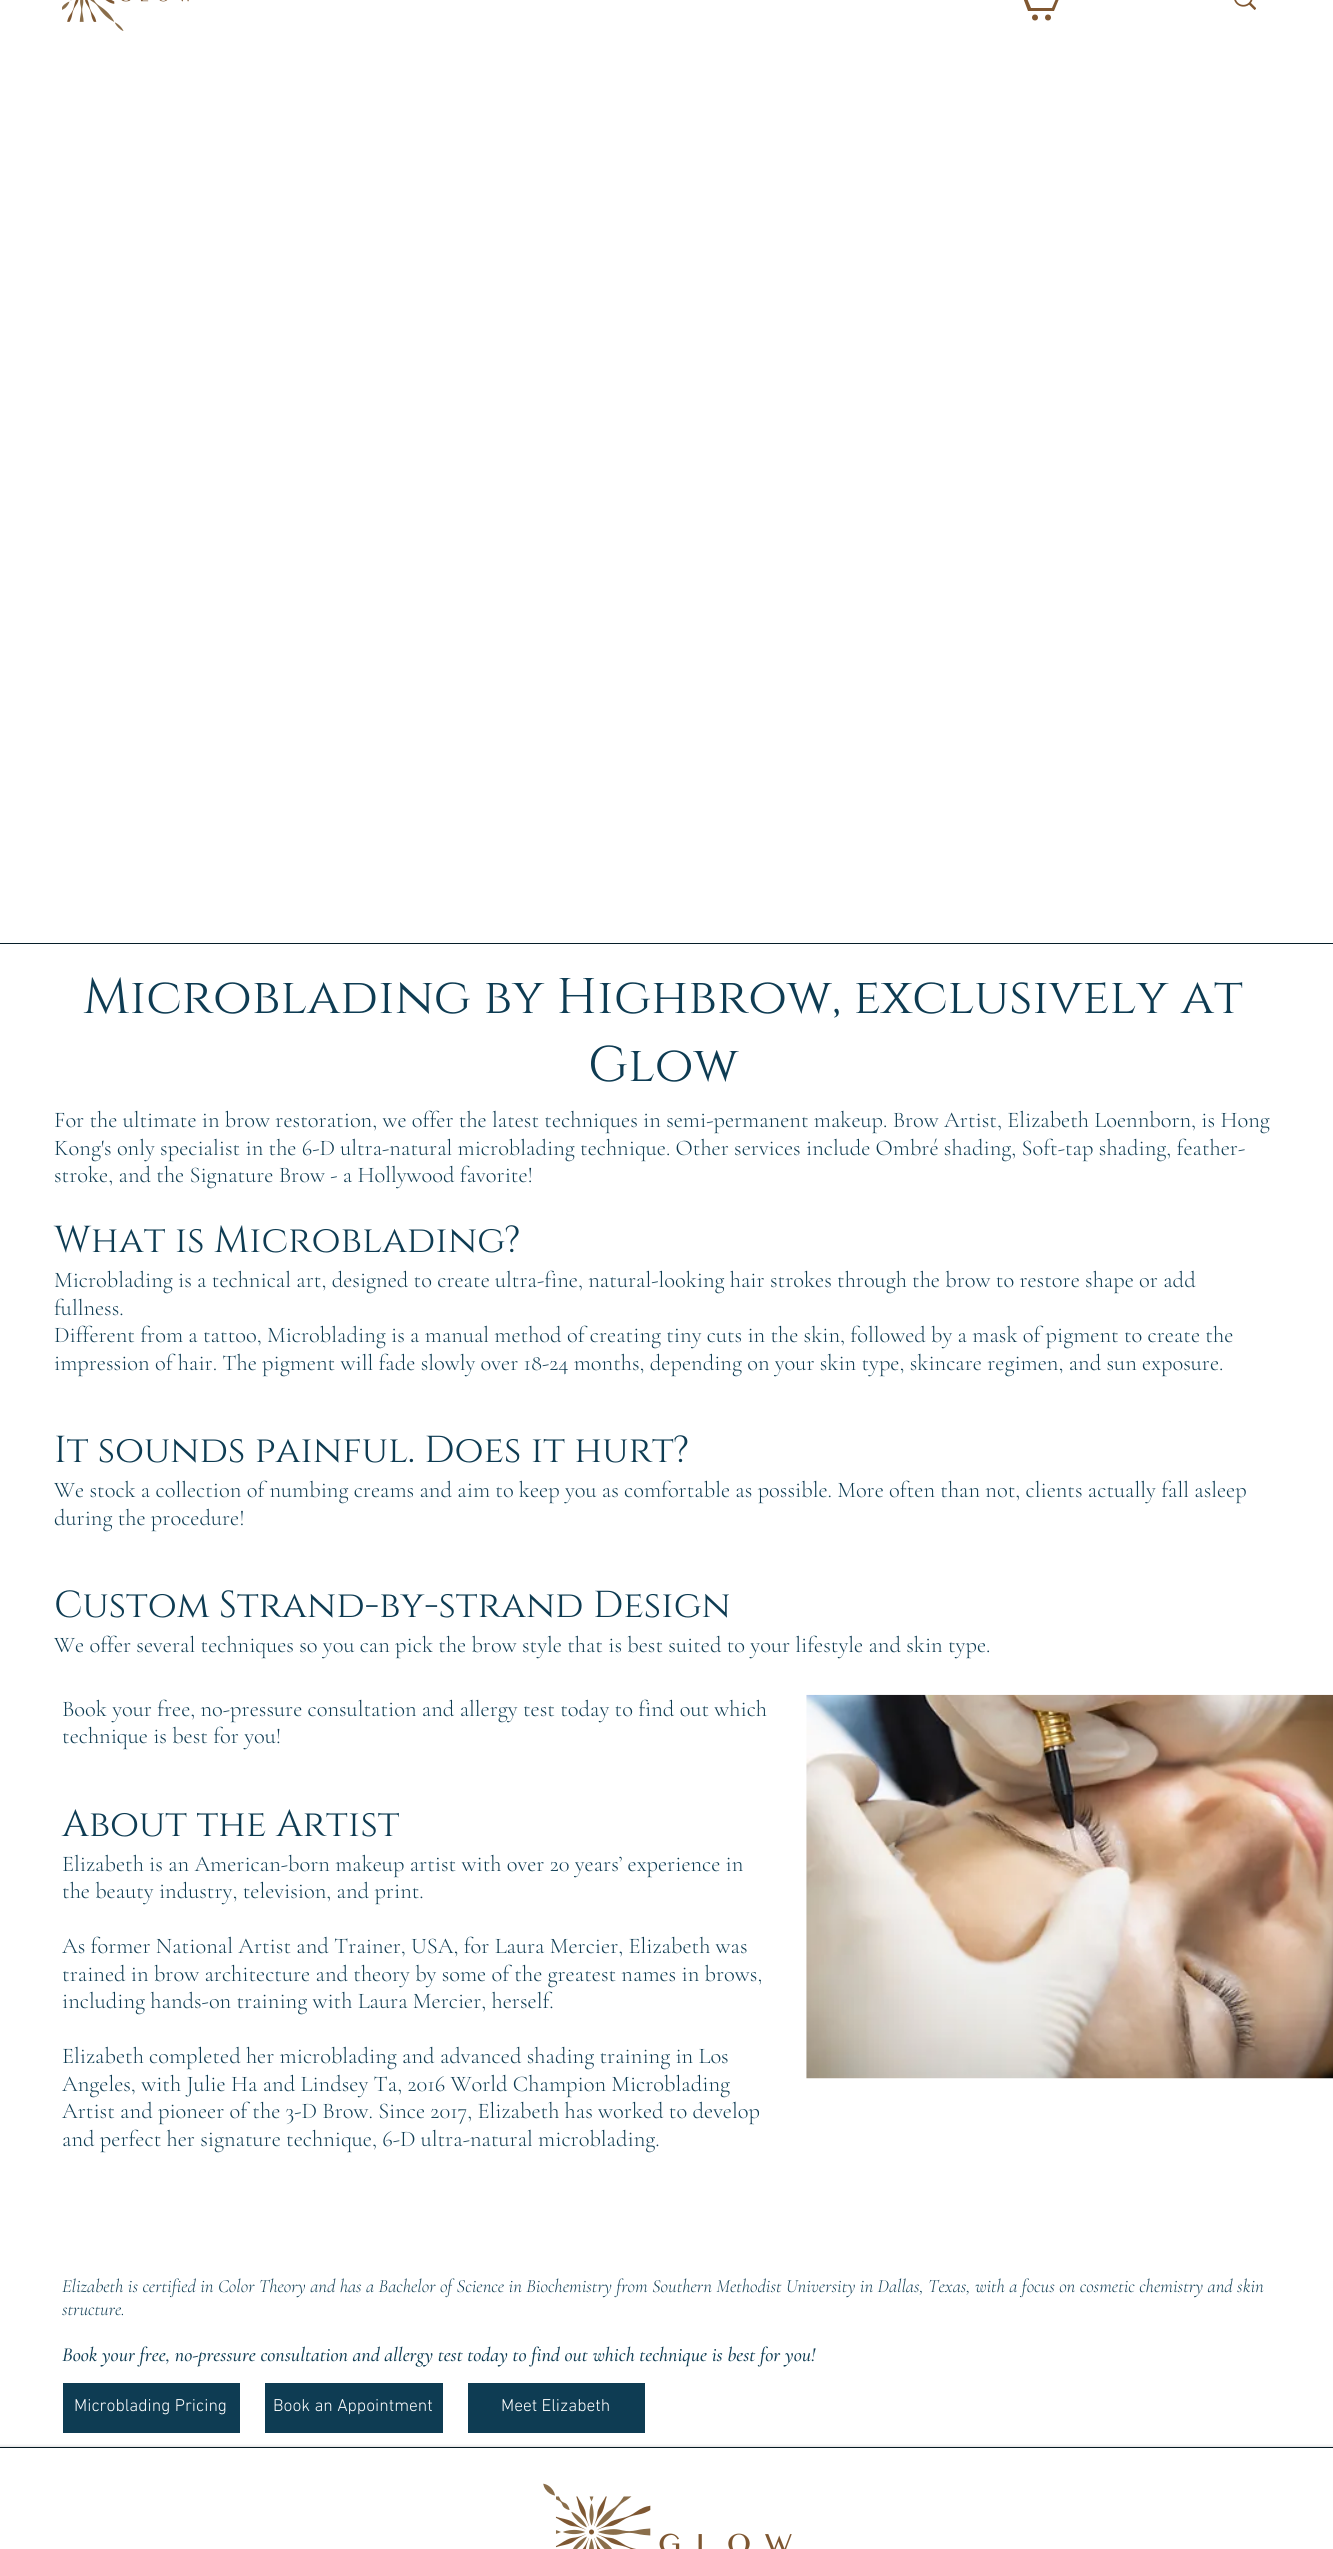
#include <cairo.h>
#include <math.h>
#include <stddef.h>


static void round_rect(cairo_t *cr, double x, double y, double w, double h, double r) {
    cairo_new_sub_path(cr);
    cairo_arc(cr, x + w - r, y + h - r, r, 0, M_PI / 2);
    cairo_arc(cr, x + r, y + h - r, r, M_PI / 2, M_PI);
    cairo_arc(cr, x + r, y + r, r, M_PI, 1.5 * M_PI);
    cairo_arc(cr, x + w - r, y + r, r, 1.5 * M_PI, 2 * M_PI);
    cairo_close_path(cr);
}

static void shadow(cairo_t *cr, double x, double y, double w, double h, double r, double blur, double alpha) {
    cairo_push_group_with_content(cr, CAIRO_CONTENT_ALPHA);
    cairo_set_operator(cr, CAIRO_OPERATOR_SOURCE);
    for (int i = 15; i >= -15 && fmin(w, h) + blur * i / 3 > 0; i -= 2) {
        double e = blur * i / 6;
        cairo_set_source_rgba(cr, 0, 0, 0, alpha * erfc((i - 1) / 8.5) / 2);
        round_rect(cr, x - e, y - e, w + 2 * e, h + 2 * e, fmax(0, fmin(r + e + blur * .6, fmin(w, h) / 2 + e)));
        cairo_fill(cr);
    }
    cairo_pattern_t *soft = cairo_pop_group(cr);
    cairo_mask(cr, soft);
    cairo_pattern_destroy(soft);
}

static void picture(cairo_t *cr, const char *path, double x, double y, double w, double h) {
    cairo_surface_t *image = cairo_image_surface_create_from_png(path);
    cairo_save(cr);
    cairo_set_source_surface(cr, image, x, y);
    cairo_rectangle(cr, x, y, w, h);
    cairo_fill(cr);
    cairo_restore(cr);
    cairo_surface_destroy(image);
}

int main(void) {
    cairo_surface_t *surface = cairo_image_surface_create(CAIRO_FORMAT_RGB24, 1333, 2549);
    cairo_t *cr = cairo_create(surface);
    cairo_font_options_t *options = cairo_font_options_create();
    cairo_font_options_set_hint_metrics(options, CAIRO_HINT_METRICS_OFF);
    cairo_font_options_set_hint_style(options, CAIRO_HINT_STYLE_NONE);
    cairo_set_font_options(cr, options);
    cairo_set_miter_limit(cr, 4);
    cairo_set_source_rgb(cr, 1, 1, 1);
    cairo_paint(cr);
    picture(cr, "img1.png", 62, 0, 127, 31);
    cairo_set_source_rgb(cr, 0.502, 0.341, 0.192);
    cairo_new_path(cr);
    cairo_move_to(cr, 1061, -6);
    cairo_line_to(cr, 1054, 11);
    cairo_line_to(cr, 1028, 11);
    cairo_line_to(cr, 1019, -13);
    cairo_line_to(cr, 1012, -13);
    cairo_line_to(cr, 1013, -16);
    cairo_line_to(cr, 1021, -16);
    cairo_line_to(cr, 1031, 8);
    cairo_line_to(cr, 1052, 8);
    cairo_line_to(cr, 1058, -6);
    cairo_fill(cr);
    cairo_arc(cr, 1048, 17.5, 3, 0, 2 * M_PI);
    cairo_fill(cr);
    cairo_arc(cr, 1035, 17.5, 3, 0, 2 * M_PI);
    cairo_fill(cr);
    picture(cr, "img2.png", 1234, 0, 22, 10);
    cairo_rectangle(cr, -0.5, 943.5, 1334, 1504);
    cairo_set_source_rgb(cr, 0.027, 0.118, 0.161);
    cairo_set_line_width(cr, 1);
    cairo_stroke(cr);
    cairo_select_font_face(cr, "Cinzel", CAIRO_FONT_SLANT_NORMAL, CAIRO_FONT_WEIGHT_NORMAL);
    cairo_set_font_size(cr, 50);
    cairo_set_source_rgb(cr, 0.055, 0.235, 0.325);
    cairo_move_to(cr, 83, 1013);
    cairo_show_text(cr, "Microblading by Highbrow, exclusively at");
    cairo_move_to(cr, 588, 1081);
    cairo_show_text(cr, "Glow");
    cairo_select_font_face(cr, "Cormorant Garamond Light", CAIRO_FONT_SLANT_NORMAL, CAIRO_FONT_WEIGHT_NORMAL);
    cairo_set_font_size(cr, 22.5);
    cairo_move_to(cr, 54, 1127);
    cairo_show_text(cr, "For the ultimate in brow restoration, we offer the latest techniques in semi-permanent makeup. Brow Artist, Elizabeth Loennborn, is Hong");
    cairo_move_to(cr, 54, 1155);
    cairo_show_text(cr, "Kong's only specialist in the 6-D ultra-natural microblading technique. Other services include Ombré shading, Soft-tap shading, feather-");
    cairo_move_to(cr, 54, 1182);
    cairo_show_text(cr, "stroke, and the Signature Brow - a Hollywood favorite!");
    cairo_select_font_face(cr, "Cinzel", CAIRO_FONT_SLANT_NORMAL, CAIRO_FONT_WEIGHT_NORMAL);
    cairo_set_font_size(cr, 37.5);
    cairo_move_to(cr, 54, 1252);
    cairo_show_text(cr, "What is Microblading?");
    cairo_select_font_face(cr, "Cormorant Garamond Light", CAIRO_FONT_SLANT_NORMAL, CAIRO_FONT_WEIGHT_NORMAL);
    cairo_set_font_size(cr, 22.5);
    cairo_move_to(cr, 54, 1287);
    cairo_show_text(cr, "Microblading is a technical art, designed to create ultra-fine, natural-looking hair strokes through the brow to restore shape or add");
    cairo_move_to(cr, 54, 1315);
    cairo_show_text(cr, "fullness.");
    cairo_move_to(cr, 54, 1342);
    cairo_show_text(cr, "Different from a tattoo, Microblading is a manual method of creating tiny cuts in the skin, followed by a mask of pigment to create the");
    cairo_move_to(cr, 54, 1370);
    cairo_show_text(cr, "impression of hair. The pigment will fade slowly over 18-24 months, depending on your skin type, skincare regimen, and sun exposure.");
    cairo_select_font_face(cr, "Cinzel", CAIRO_FONT_SLANT_NORMAL, CAIRO_FONT_WEIGHT_NORMAL);
    cairo_set_font_size(cr, 37.5);
    cairo_move_to(cr, 54, 1462);
    cairo_show_text(cr, "It sounds painful. Does it hurt?");
    cairo_select_font_face(cr, "Cormorant Garamond Light", CAIRO_FONT_SLANT_NORMAL, CAIRO_FONT_WEIGHT_NORMAL);
    cairo_set_font_size(cr, 22.5);
    cairo_move_to(cr, 54, 1497);
    cairo_show_text(cr, "We stock a collection of numbing creams and aim to keep you as comfortable as possible. More often than not, clients actually fall asleep");
    cairo_move_to(cr, 54, 1525);
    cairo_show_text(cr, "during the procedure!");
    cairo_select_font_face(cr, "Cinzel", CAIRO_FONT_SLANT_NORMAL, CAIRO_FONT_WEIGHT_NORMAL);
    cairo_set_font_size(cr, 37.5);
    cairo_move_to(cr, 54, 1617);
    cairo_show_text(cr, "Custom Strand-by-strand Design");
    cairo_select_font_face(cr, "Cormorant Garamond Light", CAIRO_FONT_SLANT_NORMAL, CAIRO_FONT_WEIGHT_NORMAL);
    cairo_set_font_size(cr, 22.5);
    cairo_move_to(cr, 54, 1652);
    cairo_show_text(cr, "We offer several techniques so you can pick the brow style that is best suited to your lifestyle and skin type.");
    cairo_move_to(cr, 62, 1716);
    cairo_show_text(cr, "Book your free, no-pressure consultation and allergy test today to find out which");
    cairo_move_to(cr, 62, 1743);
    cairo_show_text(cr, "technique is best for you!");
    cairo_select_font_face(cr, "Cinzel", CAIRO_FONT_SLANT_NORMAL, CAIRO_FONT_WEIGHT_NORMAL);
    cairo_set_font_size(cr, 37.5);
    cairo_move_to(cr, 62, 1836);
    cairo_show_text(cr, "About the Artist");
    cairo_select_font_face(cr, "Cormorant Garamond Light", CAIRO_FONT_SLANT_NORMAL, CAIRO_FONT_WEIGHT_NORMAL);
    cairo_set_font_size(cr, 22.5);
    cairo_move_to(cr, 62, 1871);
    cairo_show_text(cr, "Elizabeth is an American-born makeup artist with over 20 years’ experience in");
    cairo_move_to(cr, 62, 1898);
    cairo_show_text(cr, "the beauty industry, television, and print.");
    cairo_move_to(cr, 62, 1953);
    cairo_show_text(cr, "As former National Artist and Trainer, USA, for Laura Mercier, Elizabeth was");
    cairo_move_to(cr, 62, 1981);
    cairo_show_text(cr, "trained in brow architecture and theory by some of the greatest names in brows,");
    cairo_move_to(cr, 62, 2008);
    cairo_show_text(cr, "including hands-on training with Laura Mercier, herself.");
    cairo_move_to(cr, 62, 2063);
    cairo_show_text(cr, "Elizabeth completed her microblading and advanced shading training in Los");
    cairo_move_to(cr, 62, 2091);
    cairo_show_text(cr, "Angeles, with Julie Ha and Lindsey Ta, 2016 World Champion Microblading");
    cairo_move_to(cr, 62, 2118);
    cairo_show_text(cr, "Artist and pioneer of the 3-D Brow. Since 2017, Elizabeth has worked to develop");
    cairo_move_to(cr, 62, 2146);
    cairo_show_text(cr, "and perfect her signature technique, 6-D ultra-natural microblading.");
    picture(cr, "img3.png", 806, 1694, 527, 385);
    cairo_select_font_face(cr, "Cormorant Garamond Light", CAIRO_FONT_SLANT_ITALIC, CAIRO_FONT_WEIGHT_NORMAL);
    cairo_set_font_size(cr, 18.75);
    cairo_move_to(cr, 62, 2292);
    cairo_show_text(cr, "Elizabeth is certified in Color Theory and has a Bachelor of Science in Biochemistry from Southern Methodist University in Dallas, Texas, with a focus on cosmetic chemistry and skin");
    cairo_move_to(cr, 62, 2315);
    cairo_show_text(cr, "structure.");
    cairo_select_font_face(cr, "Cormorant Garamond Medium", CAIRO_FONT_SLANT_ITALIC, CAIRO_FONT_WEIGHT_NORMAL);
    cairo_set_font_size(cr, 20);
    cairo_move_to(cr, 62, 2361);
    cairo_show_text(cr, "Book your free, no-pressure consultation and allergy test today to find out which technique is best for you!");
    cairo_rectangle(cr, 63, 2383, 177, 50);
    cairo_fill(cr);
    cairo_select_font_face(cr, "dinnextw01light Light", CAIRO_FONT_SLANT_NORMAL, CAIRO_FONT_WEIGHT_NORMAL);
    cairo_set_font_size(cr, 17.5);
    cairo_set_source_rgb(cr, 1, 1, 1);
    cairo_move_to(cr, 74, 2411);
    cairo_show_text(cr, "Microblading Pricing");
    cairo_set_source_rgb(cr, 0.055, 0.235, 0.325);
    cairo_rectangle(cr, 265, 2383, 178, 50);
    cairo_fill(cr);
    cairo_set_source_rgb(cr, 1, 1, 1);
    cairo_move_to(cr, 273, 2411);
    cairo_show_text(cr, "Book an Appointment");
    cairo_set_source_rgb(cr, 0.055, 0.235, 0.325);
    cairo_rectangle(cr, 468, 2383, 177, 50);
    cairo_fill(cr);
    cairo_set_source_rgb(cr, 1, 1, 1);
    cairo_move_to(cr, 501, 2411);
    cairo_show_text(cr, "Meet Elizabeth");
    cairo_save(cr);
    cairo_rectangle(cr, 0, 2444, 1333, 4);
    cairo_clip(cr);
    cairo_set_source_rgb(cr, 0, 0, 0);
    shadow(cr, 0, 2449, 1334, 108, 0, 2.5, 0.6);
    cairo_restore(cr);
    picture(cr, "img4.png", 543, 2483, 249, 66);
    cairo_surface_write_to_png(surface, "page.png");
    cairo_font_options_destroy(options);
    cairo_destroy(cr);
    cairo_surface_destroy(surface);
    return 0;
}
